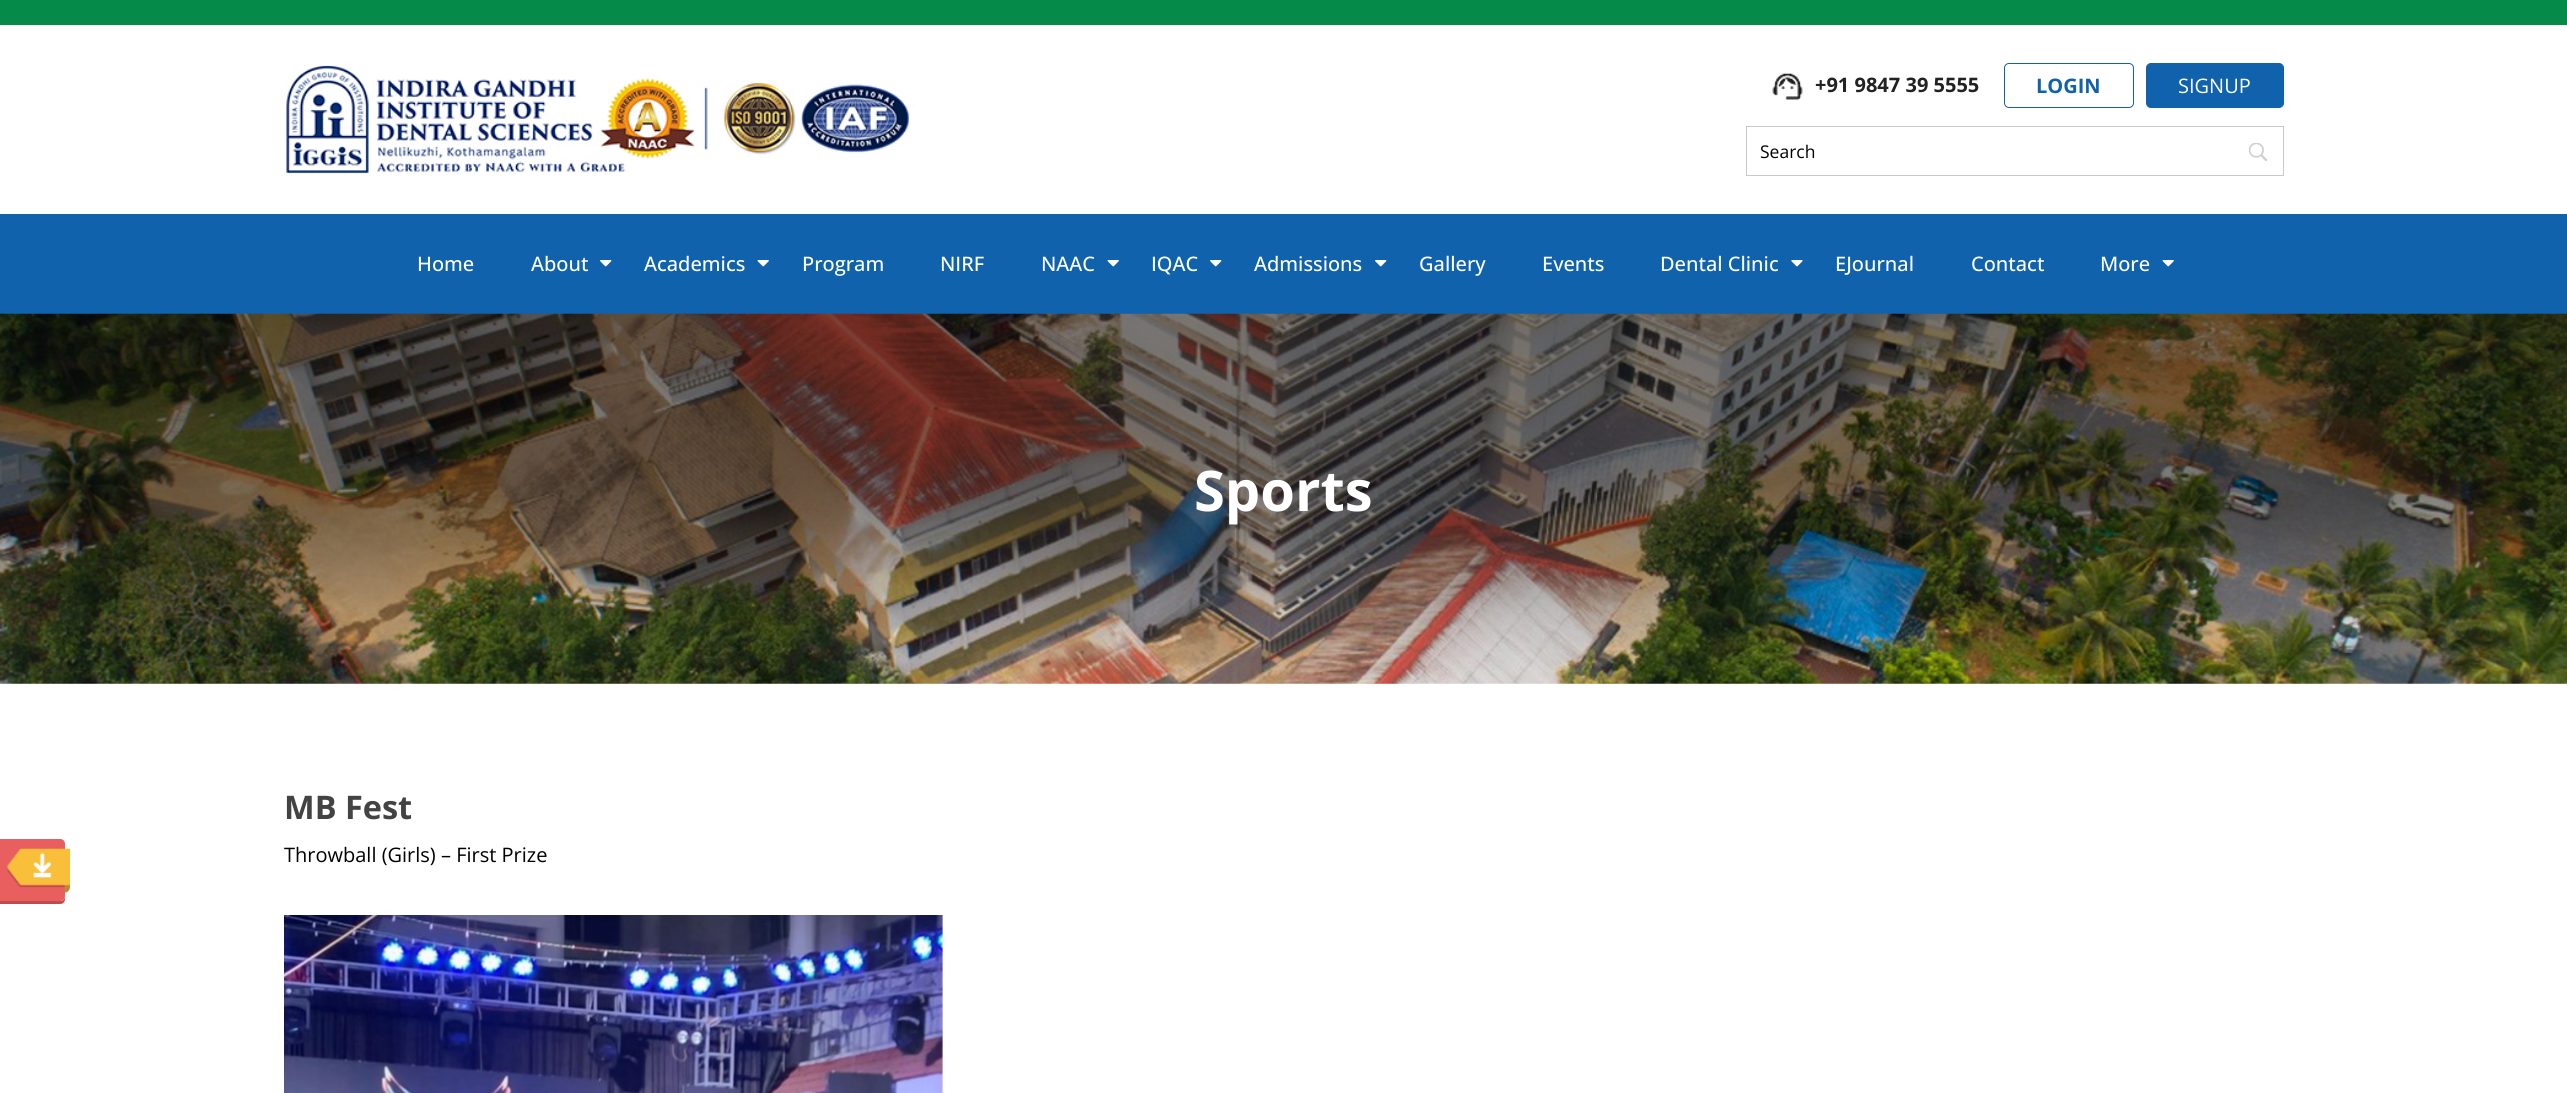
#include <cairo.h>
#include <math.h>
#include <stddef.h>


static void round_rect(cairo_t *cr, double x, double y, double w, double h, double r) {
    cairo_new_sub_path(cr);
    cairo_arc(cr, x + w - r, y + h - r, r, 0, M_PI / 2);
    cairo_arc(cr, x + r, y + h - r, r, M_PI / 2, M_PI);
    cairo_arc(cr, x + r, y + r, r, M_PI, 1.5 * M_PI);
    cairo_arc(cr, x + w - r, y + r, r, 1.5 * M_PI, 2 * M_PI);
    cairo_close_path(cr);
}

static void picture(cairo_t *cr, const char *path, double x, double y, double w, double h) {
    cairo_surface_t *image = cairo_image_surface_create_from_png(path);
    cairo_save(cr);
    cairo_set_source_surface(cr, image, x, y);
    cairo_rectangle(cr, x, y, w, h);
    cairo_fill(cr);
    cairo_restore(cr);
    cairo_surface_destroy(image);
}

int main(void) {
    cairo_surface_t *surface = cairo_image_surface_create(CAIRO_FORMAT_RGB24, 2567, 1093);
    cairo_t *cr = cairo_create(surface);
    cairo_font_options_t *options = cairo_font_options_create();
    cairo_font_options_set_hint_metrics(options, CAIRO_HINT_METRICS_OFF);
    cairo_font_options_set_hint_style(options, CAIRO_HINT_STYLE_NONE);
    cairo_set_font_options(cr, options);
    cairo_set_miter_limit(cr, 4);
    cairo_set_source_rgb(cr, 1, 1, 1);
    cairo_paint(cr);
    cairo_set_source_rgb(cr, 0.024, 0.541, 0.29);
    cairo_rectangle(cr, 0, 0, 2567, 25);
    cairo_fill(cr);
    picture(cr, "img1.png", 286, 65, 623, 109);
    picture(cr, "img2.png", 1772, 73, 31, 27);
    cairo_select_font_face(cr, "Open Sans", CAIRO_FONT_SLANT_NORMAL, CAIRO_FONT_WEIGHT_BOLD);
    cairo_set_font_size(cr, 20);
    cairo_set_source_rgb(cr, 0.133, 0.133, 0.133);
    cairo_move_to(cr, 1815, 92);
    cairo_show_text(cr, "+91 9847 39 5555");
    round_rect(cr, 2004.5, 63.5, 129, 44, 4.5);
    cairo_set_source_rgb(cr, 0.063, 0.384, 0.675);
    cairo_set_line_width(cr, 1);
    cairo_stroke(cr);
    cairo_move_to(cr, 2036, 93);
    cairo_show_text(cr, "LOGIN");
    round_rect(cr, 2146.5, 63.5, 137, 44, 4.5);
    cairo_fill_preserve(cr);
    cairo_stroke(cr);
    cairo_select_font_face(cr, "Open Sans", CAIRO_FONT_SLANT_NORMAL, CAIRO_FONT_WEIGHT_NORMAL);
    cairo_set_source_rgb(cr, 1, 1, 1);
    cairo_move_to(cr, 2178, 93);
    cairo_show_text(cr, "SIGNUP");
    picture(cr, "img3.png", 2249, 143, 19, 18);
    cairo_rectangle(cr, 1746.5, 126.5, 537, 49);
    cairo_set_source_rgb(cr, 0.796, 0.784, 0.784);
    cairo_stroke(cr);
    cairo_set_font_size(cr, 17.5);
    cairo_set_source_rgb(cr, 0, 0, 0);
    cairo_move_to(cr, 1760, 158);
    cairo_show_text(cr, "Search");
    cairo_set_source_rgb(cr, 0.063, 0.384, 0.675);
    cairo_rectangle(cr, 0, 214, 2567, 100);
    cairo_fill(cr);
    cairo_select_font_face(cr, "Open Sans Medium", CAIRO_FONT_SLANT_NORMAL, CAIRO_FONT_WEIGHT_NORMAL);
    cairo_set_font_size(cr, 20);
    cairo_set_source_rgb(cr, 1, 1, 1);
    cairo_move_to(cr, 417, 271);
    cairo_show_text(cr, "Home");
    cairo_move_to(cr, 531, 271);
    cairo_show_text(cr, "About");
    picture(cr, "img4.png", 600, 260, 12, 7);
    cairo_move_to(cr, 644, 271);
    cairo_show_text(cr, "Academics");
    picture(cr, "img5.png", 757, 260, 12, 7);
    cairo_move_to(cr, 802, 271);
    cairo_show_text(cr, "Program");
    cairo_move_to(cr, 940, 271);
    cairo_show_text(cr, "NIRF");
    cairo_move_to(cr, 1041, 271);
    cairo_show_text(cr, "NAAC");
    picture(cr, "img5.png", 1107, 260, 12, 7);
    cairo_move_to(cr, 1151, 271);
    cairo_show_text(cr, "IQAC");
    picture(cr, "img4.png", 1210, 260, 12, 7);
    cairo_move_to(cr, 1254, 271);
    cairo_show_text(cr, "Admissions");
    picture(cr, "img4.png", 1375, 260, 12, 7);
    cairo_move_to(cr, 1419, 271);
    cairo_show_text(cr, "Gallery");
    cairo_move_to(cr, 1542, 271);
    cairo_show_text(cr, "Events");
    cairo_move_to(cr, 1660, 271);
    cairo_show_text(cr, "Dental Clinic");
    picture(cr, "img6.png", 1791, 260, 12, 7);
    cairo_move_to(cr, 1835, 271);
    cairo_show_text(cr, "EJournal");
    cairo_move_to(cr, 1971, 271);
    cairo_show_text(cr, "Contact");
    cairo_move_to(cr, 2100, 271);
    cairo_show_text(cr, "More");
    picture(cr, "img5.png", 2162, 260, 12, 7);
    picture(cr, "img7.png", 0, 313, 2567, 371);
    cairo_select_font_face(cr, "Open Sans", CAIRO_FONT_SLANT_NORMAL, CAIRO_FONT_WEIGHT_BOLD);
    cairo_set_font_size(cr, 56);
    cairo_move_to(cr, 1194, 511);
    cairo_show_text(cr, "Sports");
    cairo_set_source_rgb(cr, 0.757, 0.298, 0.298);
    cairo_new_path(cr);
    cairo_move_to(cr, -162, 901);
    cairo_line_to(cr, -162, 904);
    cairo_line_to(cr, 60, 904);
    cairo_curve_to(cr, 63, 904, 65, 902, 65, 899);
    cairo_line_to(cr, 65, 896);
    cairo_curve_to(cr, 65, 899, 63, 901, 60, 901);
    cairo_close_path(cr);
    cairo_fill(cr);
    cairo_set_source_rgb(cr, 0.914, 0.369, 0.369);
    cairo_new_path(cr);
    cairo_move_to(cr, -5, 839);
    cairo_line_to(cr, 60, 839);
    cairo_curve_to(cr, 63, 839, 65, 841, 65, 844);
    cairo_line_to(cr, 65, 896);
    cairo_curve_to(cr, 65, 899, 63, 901, 60, 901);
    cairo_line_to(cr, -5, 901);
    cairo_close_path(cr);
    cairo_fill(cr);
    picture(cr, "img8.png", 7, 848, 63, 45);
    cairo_set_font_size(cr, 32.5);
    cairo_set_source_rgb(cr, 0.263, 0.263, 0.263);
    cairo_move_to(cr, 284, 819);
    cairo_show_text(cr, "MB Fest");
    cairo_select_font_face(cr, "Open Sans", CAIRO_FONT_SLANT_NORMAL, CAIRO_FONT_WEIGHT_NORMAL);
    cairo_set_font_size(cr, 20);
    cairo_set_source_rgb(cr, 0, 0, 0);
    cairo_move_to(cr, 284, 862);
    cairo_show_text(cr, "Throwball (Girls) – First Prize");
    picture(cr, "img9.png", 284, 915, 659, 178);
    cairo_surface_write_to_png(surface, "page.png");
    cairo_font_options_destroy(options);
    cairo_destroy(cr);
    cairo_surface_destroy(surface);
    return 0;
}
